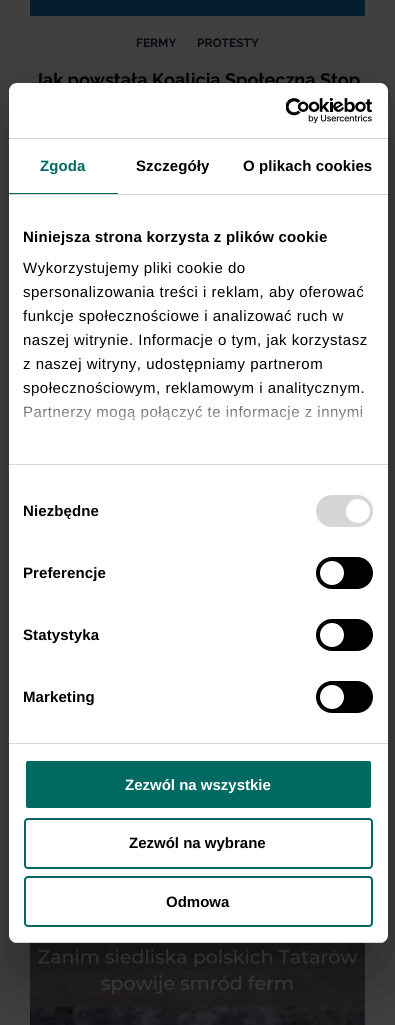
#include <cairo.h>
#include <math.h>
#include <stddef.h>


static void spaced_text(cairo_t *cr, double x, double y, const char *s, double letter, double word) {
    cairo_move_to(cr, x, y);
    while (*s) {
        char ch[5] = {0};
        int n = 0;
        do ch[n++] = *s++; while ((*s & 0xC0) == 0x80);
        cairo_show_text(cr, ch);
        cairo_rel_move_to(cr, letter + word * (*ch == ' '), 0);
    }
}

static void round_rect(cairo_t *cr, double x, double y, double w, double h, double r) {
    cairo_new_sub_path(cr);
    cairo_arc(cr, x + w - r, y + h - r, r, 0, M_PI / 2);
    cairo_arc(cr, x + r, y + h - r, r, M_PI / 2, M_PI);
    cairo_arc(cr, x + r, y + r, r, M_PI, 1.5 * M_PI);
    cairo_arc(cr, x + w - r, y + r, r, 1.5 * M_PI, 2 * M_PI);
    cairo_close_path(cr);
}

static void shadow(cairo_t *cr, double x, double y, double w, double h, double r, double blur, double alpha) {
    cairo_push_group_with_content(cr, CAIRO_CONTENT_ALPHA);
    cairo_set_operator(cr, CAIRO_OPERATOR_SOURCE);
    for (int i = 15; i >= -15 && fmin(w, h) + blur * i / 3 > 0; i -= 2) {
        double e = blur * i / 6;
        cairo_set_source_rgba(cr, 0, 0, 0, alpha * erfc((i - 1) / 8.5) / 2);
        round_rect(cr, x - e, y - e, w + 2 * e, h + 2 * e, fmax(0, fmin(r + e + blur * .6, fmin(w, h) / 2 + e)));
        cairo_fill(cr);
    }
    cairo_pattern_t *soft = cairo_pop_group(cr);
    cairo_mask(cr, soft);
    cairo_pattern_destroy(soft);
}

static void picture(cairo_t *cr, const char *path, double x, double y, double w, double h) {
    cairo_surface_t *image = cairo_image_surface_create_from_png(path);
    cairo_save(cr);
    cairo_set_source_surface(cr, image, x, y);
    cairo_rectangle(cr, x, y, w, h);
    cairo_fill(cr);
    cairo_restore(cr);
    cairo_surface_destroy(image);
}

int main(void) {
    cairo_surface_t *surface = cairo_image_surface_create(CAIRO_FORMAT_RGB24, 395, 1025);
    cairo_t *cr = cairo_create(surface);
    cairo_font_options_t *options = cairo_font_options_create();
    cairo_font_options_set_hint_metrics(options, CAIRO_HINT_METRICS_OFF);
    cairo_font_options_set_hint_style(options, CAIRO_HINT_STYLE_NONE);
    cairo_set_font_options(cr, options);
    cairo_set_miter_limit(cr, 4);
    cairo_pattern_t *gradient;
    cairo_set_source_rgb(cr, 0.251, 0.251, 0.251);
    cairo_paint(cr);
    cairo_set_source_rgb(cr, 0.016, 0.118, 0.184);
    cairo_rectangle(cr, 30, 0, 335, 16);
    cairo_fill(cr);
    cairo_select_font_face(cr, "Raleway", CAIRO_FONT_SLANT_NORMAL, CAIRO_FONT_WEIGHT_BOLD);
    cairo_set_font_size(cr, 12);
    cairo_set_source_rgb(cr, 0.031, 0.043, 0.071);
    cairo_move_to(cr, 136, 47);
    cairo_show_text(cr, "FERMY");
    cairo_move_to(cr, 197, 47);
    cairo_show_text(cr, "PROTESTY");
    cairo_set_font_size(cr, 18);
    cairo_set_source_rgb(cr, 0, 0, 0);
    cairo_move_to(cr, 34, 86);
    cairo_show_text(cr, "Jak powstała Koalicja Społeczna Stop");
    picture(cr, "img1.png", 30, 943, 335, 82);
    cairo_set_source_rgb(cr, 0, 0, 0);
    shadow(cr, 9, 115, 379, 860, 8, 34, 0.3);
    cairo_set_source_rgb(cr, 1, 1, 1);
    round_rect(cr, 9, 83, 379, 860, 8);
    cairo_fill(cr);
    cairo_set_source_rgb(cr, 0.839, 0.839, 0.839);
    cairo_rectangle(cr, 9, 138, 379, 1);
    cairo_fill(cr);
    picture(cr, "img2.png", 286, 98, 87, 25);
    cairo_rectangle(cr, 9, 194, 379, 1);
    cairo_fill(cr);
    cairo_set_source_rgb(cr, 0, 0.416, 0.384);
    cairo_rectangle(cr, 9, 193, 109, 1);
    cairo_fill(cr);
    cairo_select_font_face(cr, "Liberation Sans", CAIRO_FONT_SLANT_NORMAL, CAIRO_FONT_WEIGHT_BOLD);
    cairo_set_font_size(cr, 15);
    spaced_text(cr, 40, 171, "Zgoda", 0.1, 0);
    cairo_set_source_rgb(cr, 0, 0, 0);
    spaced_text(cr, 136, 171, "Szczegóły", 0.1, 0);
    spaced_text(cr, 243, 171, "O plikach cookies", 0.1, 0);
    cairo_set_source_rgb(cr, 0.839, 0.839, 0.839);
    cairo_rectangle(cr, 9, 464, 379, 1);
    cairo_fill(cr);
    cairo_set_source_rgb(cr, 0, 0, 0);
    spaced_text(cr, 23, 242, "Niniejsza strona korzysta z plików cookie", 0.25, 0);
    cairo_select_font_face(cr, "Liberation Sans", CAIRO_FONT_SLANT_NORMAL, CAIRO_FONT_WEIGHT_NORMAL);
    spaced_text(cr, 23, 273, "Wykorzystujemy pliki cookie do", 0.5, 0);
    spaced_text(cr, 23, 297, "spersonalizowania treści i reklam, aby oferować", 0.5, 0);
    spaced_text(cr, 23, 321, "funkcje społecznościowe i analizować ruch w", 0.5, 0);
    spaced_text(cr, 23, 345, "naszej witrynie. Informacje o tym, jak korzystasz", 0.5, 0);
    spaced_text(cr, 23, 369, "z naszej witryny, udostępniamy partnerom", 0.5, 0);
    spaced_text(cr, 23, 393, "społecznościowym, reklamowym i analitycznym.", 0.5, 0);
    spaced_text(cr, 23, 417, "Partnerzy mogą połączyć te informacje z innymi", 0.5, 0);
    gradient = cairo_pattern_create_linear(192, 464, 192, 389);
    cairo_pattern_add_color_stop_rgba(gradient, 0, 1, 1, 1, 1);
    cairo_pattern_add_color_stop_rgba(gradient, 0.5, 1, 1, 1, 0.8);
    cairo_pattern_add_color_stop_rgba(gradient, 1, 1, 1, 1, 0);
    cairo_set_source(cr, gradient);
    cairo_pattern_destroy(gradient);
    cairo_rectangle(cr, 23, 390, 341, 31);
    cairo_fill(cr);
    cairo_set_source_rgb(cr, 0.839, 0.839, 0.839);
    cairo_rectangle(cr, 9, 743, 379, 1);
    cairo_fill(cr);
    cairo_select_font_face(cr, "Liberation Sans", CAIRO_FONT_SLANT_NORMAL, CAIRO_FONT_WEIGHT_BOLD);
    cairo_set_source_rgb(cr, 0, 0, 0);
    spaced_text(cr, 23, 516, "Niezbędne", 0.1, 0);
    cairo_set_source_rgb(cr, 0.839, 0.839, 0.839);
    round_rect(cr, 316, 495, 57, 32, 16);
    cairo_fill(cr);
    cairo_set_source_rgb(cr, 1, 1, 1);
    cairo_arc(cr, 358, 511, 12, 0, 2 * M_PI);
    cairo_fill(cr);
    cairo_set_source_rgb(cr, 0, 0, 0);
    spaced_text(cr, 23, 578, "Preferencje", 0.1, 0);
    round_rect(cr, 316, 557, 57, 32, 16);
    cairo_fill(cr);
    cairo_set_source_rgb(cr, 1, 1, 1);
    cairo_arc(cr, 332, 573, 12, 0, 2 * M_PI);
    cairo_fill(cr);
    cairo_set_source_rgb(cr, 0, 0, 0);
    spaced_text(cr, 23, 640, "Statystyka", 0.1, 0);
    round_rect(cr, 316, 619, 57, 32, 16);
    cairo_fill(cr);
    cairo_set_source_rgb(cr, 1, 1, 1);
    cairo_arc(cr, 332, 635, 12, 0, 2 * M_PI);
    cairo_fill(cr);
    cairo_set_source_rgb(cr, 0, 0, 0);
    spaced_text(cr, 23, 702, "Marketing", 0.1, 0);
    round_rect(cr, 316, 681, 57, 32, 16);
    cairo_fill(cr);
    cairo_set_source_rgb(cr, 1, 1, 1);
    cairo_arc(cr, 332, 697, 12, 0, 2 * M_PI);
    cairo_fill(cr);
    cairo_save(cr);
    round_rect(cr, 9, 83, 379, 860, 8);
    cairo_clip(cr);
    cairo_set_source_rgb(cr, 0.839, 0.839, 0.839);
    cairo_rectangle(cr, 9, 942, 379, 1);
    cairo_fill(cr);
    cairo_restore(cr);
    cairo_set_source_rgb(cr, 0, 0.416, 0.384);
    round_rect(cr, 25, 760, 347, 49, 3);
    cairo_fill_preserve(cr);
    cairo_set_source_rgb(cr, 1, 1, 1);
    cairo_stroke(cr);
    cairo_move_to(cr, 125, 790);
    cairo_show_text(cr, "Zezwól na wszystkie");
    round_rect(cr, 25, 819, 347, 49, 3);
    cairo_set_source_rgb(cr, 0, 0.416, 0.384);
    cairo_stroke(cr);
    cairo_set_source_rgb(cr, 0, 0, 0);
    cairo_move_to(cr, 129, 848);
    cairo_show_text(cr, "Zezwól na wybrane");
    round_rect(cr, 25, 877, 347, 49, 3);
    cairo_set_source_rgb(cr, 0, 0.416, 0.384);
    cairo_stroke(cr);
    cairo_set_source_rgb(cr, 0, 0, 0);
    cairo_move_to(cr, 166, 907);
    cairo_show_text(cr, "Odmowa");
    cairo_surface_write_to_png(surface, "page.png");
    cairo_font_options_destroy(options);
    cairo_destroy(cr);
    cairo_surface_destroy(surface);
    return 0;
}
